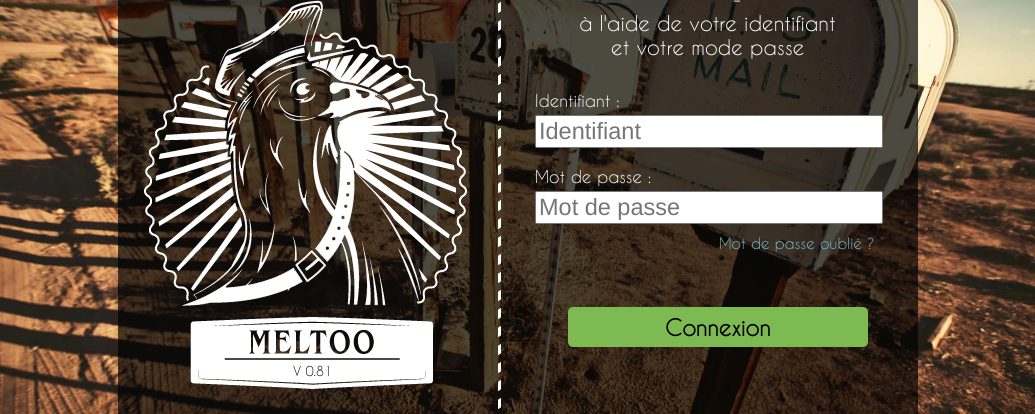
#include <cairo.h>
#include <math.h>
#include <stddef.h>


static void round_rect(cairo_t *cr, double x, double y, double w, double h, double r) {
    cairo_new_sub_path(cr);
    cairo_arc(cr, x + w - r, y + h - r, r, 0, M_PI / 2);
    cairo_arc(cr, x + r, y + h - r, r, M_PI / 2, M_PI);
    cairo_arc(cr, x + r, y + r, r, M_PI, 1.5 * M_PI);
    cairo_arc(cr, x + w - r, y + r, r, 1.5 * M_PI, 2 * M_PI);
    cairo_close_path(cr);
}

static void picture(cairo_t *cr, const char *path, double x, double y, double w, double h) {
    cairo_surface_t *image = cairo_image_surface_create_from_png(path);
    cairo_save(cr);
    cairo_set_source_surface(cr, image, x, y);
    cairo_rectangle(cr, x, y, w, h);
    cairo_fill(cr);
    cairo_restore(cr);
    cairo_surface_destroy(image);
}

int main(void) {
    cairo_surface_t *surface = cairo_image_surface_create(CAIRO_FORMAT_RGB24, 1035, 414);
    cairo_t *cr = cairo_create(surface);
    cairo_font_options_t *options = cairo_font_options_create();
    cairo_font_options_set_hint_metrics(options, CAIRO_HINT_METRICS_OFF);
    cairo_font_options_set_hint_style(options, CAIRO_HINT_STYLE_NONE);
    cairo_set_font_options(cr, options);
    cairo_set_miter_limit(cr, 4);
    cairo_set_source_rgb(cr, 1, 1, 1);
    cairo_paint(cr);
    picture(cr, "img1.png", 0, 0, 1035, 414);
    cairo_set_source_rgba(cr, 0, 0, 0, 0.7);
    cairo_rectangle(cr, 118, 0, 800, 414);
    cairo_fill(cr);
    cairo_select_font_face(cr, "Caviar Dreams", CAIRO_FONT_SLANT_NORMAL, CAIRO_FONT_WEIGHT_NORMAL);
    cairo_set_font_size(cr, 20.4);
    cairo_set_source_rgb(cr, 1, 1, 1);
    cairo_move_to(cr, 733, 7);
    cairo_show_text(cr, "-");
    cairo_move_to(cr, 579, 31);
    cairo_show_text(cr, "à l'aide de votre identifiant");
    cairo_move_to(cr, 611, 55);
    cairo_show_text(cr, "et votre mode passe");
    cairo_set_font_size(cr, 16.75);
    cairo_move_to(cr, 535, 107);
    cairo_show_text(cr, "Identifiant :");
    round_rect(cr, 535.5, 115.5, 347, 32, 1.5);
    cairo_fill_preserve(cr);
    cairo_set_source_rgb(cr, 0.463, 0.463, 0.463);
    cairo_set_line_width(cr, 1);
    cairo_stroke(cr);
    cairo_select_font_face(cr, "Liberation Sans", CAIRO_FONT_SLANT_NORMAL, CAIRO_FONT_WEIGHT_NORMAL);
    cairo_set_font_size(cr, 23.5);
    cairo_set_source_rgb(cr, 0.459, 0.459, 0.459);
    cairo_move_to(cr, 539, 139);
    cairo_show_text(cr, "Identifiant");
    cairo_select_font_face(cr, "Caviar Dreams", CAIRO_FONT_SLANT_NORMAL, CAIRO_FONT_WEIGHT_NORMAL);
    cairo_set_font_size(cr, 16.75);
    cairo_set_source_rgb(cr, 1, 1, 1);
    cairo_move_to(cr, 535, 183);
    cairo_show_text(cr, "Mot de passe :");
    round_rect(cr, 535.5, 191.5, 347, 32, 1.5);
    cairo_fill_preserve(cr);
    cairo_set_source_rgb(cr, 0.463, 0.463, 0.463);
    cairo_stroke(cr);
    cairo_select_font_face(cr, "Liberation Sans", CAIRO_FONT_SLANT_NORMAL, CAIRO_FONT_WEIGHT_NORMAL);
    cairo_set_font_size(cr, 23.5);
    cairo_set_source_rgb(cr, 0.459, 0.459, 0.459);
    cairo_move_to(cr, 539, 215);
    cairo_show_text(cr, "Mot de passe");
    cairo_select_font_face(cr, "Caviar Dreams", CAIRO_FONT_SLANT_NORMAL, CAIRO_FONT_WEIGHT_NORMAL);
    cairo_set_font_size(cr, 15);
    cairo_set_source_rgb(cr, 0.467, 0.729, 0.808);
    cairo_move_to(cr, 719, 249);
    cairo_show_text(cr, "Mot de passe oublié ?");
    cairo_set_source_rgb(cr, 0.494, 0.729, 0.322);
    round_rect(cr, 568, 307, 300, 40, 5);
    cairo_fill(cr);
    cairo_select_font_face(cr, "Caviar Dreams", CAIRO_FONT_SLANT_NORMAL, CAIRO_FONT_WEIGHT_BOLD);
    cairo_set_font_size(cr, 22);
    cairo_set_source_rgb(cr, 0, 0, 0);
    cairo_move_to(cr, 665, 336);
    cairo_show_text(cr, "Connexion");
    picture(cr, "img2.png", 144, 0, 323, 389);
    picture(cr, "img3.png", 498, 1, 3, 408);
    cairo_set_source_rgb(cr, 1, 1, 1);
    cairo_rectangle(cr, 291, 365, 39, 10);
    cairo_fill(cr);
    cairo_select_font_face(cr, "Caviar Dreams", CAIRO_FONT_SLANT_NORMAL, CAIRO_FONT_WEIGHT_NORMAL);
    cairo_set_font_size(cr, 13);
    cairo_set_source_rgb(cr, 0, 0, 0);
    cairo_move_to(cr, 293, 376);
    cairo_show_text(cr, "V 0.81");
    cairo_surface_write_to_png(surface, "page.png");
    cairo_font_options_destroy(options);
    cairo_destroy(cr);
    cairo_surface_destroy(surface);
    return 0;
}
